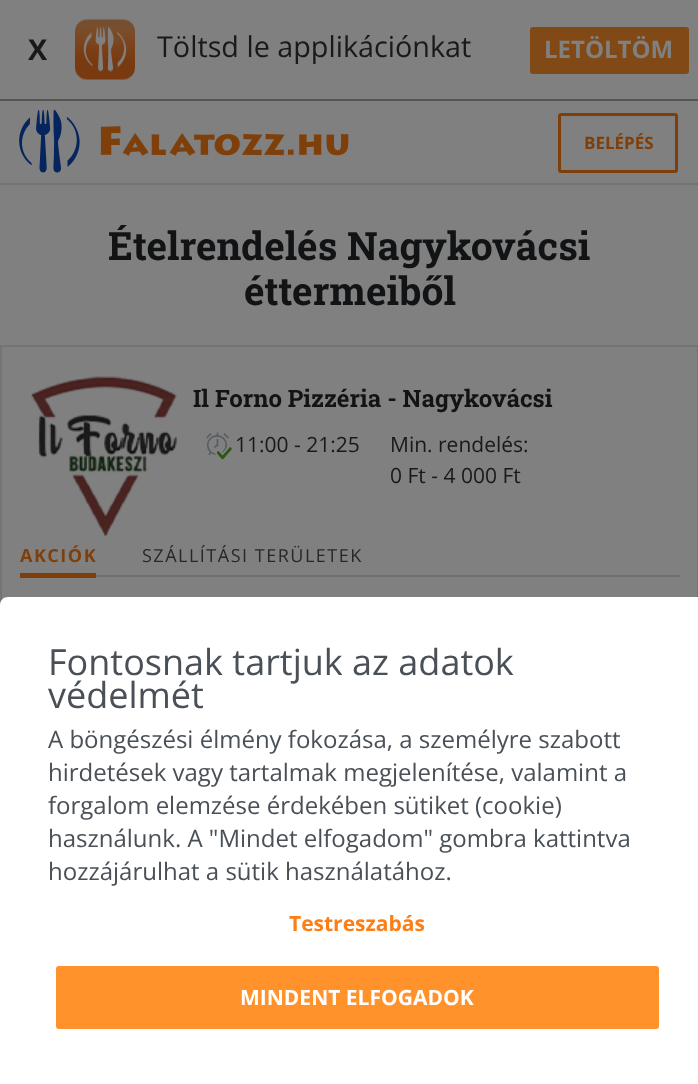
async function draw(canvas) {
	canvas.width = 698;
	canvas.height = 1084;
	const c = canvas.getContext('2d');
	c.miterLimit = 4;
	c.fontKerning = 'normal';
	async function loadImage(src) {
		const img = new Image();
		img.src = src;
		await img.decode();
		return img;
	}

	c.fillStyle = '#808080';
	c.fillRect(0, 0, 698, 1084);
	c.fillStyle = '#555';
	c.fillRect(0, 99, 698, 2);
	c.font = 'bold 28.75px Open Sans';
	c.fillStyle = '#17191a';
	c.fillText('X', 28, 60);
	c.drawImage(await loadImage('img1.png'), 75, 19, 60, 61);
	c.font = '28.75px Open Sans';
	c.fillText('Töltsd le applikációnkat', 157, 57);
	c.fillStyle = '#804916';
	c.beginPath();
	c.roundRect(531.5, 28.5, 156, 44, 1.5);
	c.fill();
	c.strokeStyle = '#804916';
	c.lineWidth = 3;
	c.stroke();
	c.font = 'bold 24px Open Sans';
	c.fillStyle = '#808080';
	c.fillText('LETÖLTÖM', 544, 58);
	c.drawImage(await loadImage('img2.png'), 19, 110, 330, 63);
	c.beginPath();
	c.roundRect(559.5, 114.5, 117, 57, 1.5);
	c.strokeStyle = '#7f3f0a';
	c.stroke();
	c.font = 'bold 17px Open Sans';
	c.fillStyle = '#7f3f0a';
	c.fillText('BELÉPÉS', 584, 149);
	c.fillStyle = '#747474';
	c.fillRect(0, 183, 698, 2);
	c.font = 'bold 39px Roboto Slab';
	c.fillStyle = '#111315';
	c.fillText('Ételrendelés Nagykovácsi', 108, 260);
	c.fillText('éttermeiből', 244, 305);
	c.strokeStyle = '#747474';
	c.lineWidth = 2;
	c.strokeRect(1, 346, 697, 379);
	c.drawImage(await loadImage('img3.png'), 31, 376, 146, 161);
	c.font = 'bold 24px Roboto Slab';
	c.fillText('Il Forno Pizzéria - Nagykovácsi', 193, 407);
	c.drawImage(await loadImage('img4.png'), 206, 432, 23, 24);
	c.font = '21px Open Sans';
	c.fillStyle = '#17191a';
	c.fillText('11:00 - 21:25', 235, 452);
	c.drawImage(await loadImage('img5.png'), 215, 447, 17, 13);
	c.fillText('Min. rendelés:', 390, 452);
	c.fillText('0 Ft - 4 000 Ft', 390, 483);
	c.fillStyle = '#6e6e6e';
	c.fillRect(96, 575, 584, 2);
	c.fillStyle = '#7f3f0a';
	c.fillRect(20, 573, 76, 5);
	c.letterSpacing = '1.5px';
	c.font = 'bold 18px Open Sans';
	c.fillText('AKCIÓK', 20, 562);
	c.font = '18px Open Sans';
	c.fillStyle = '#252728';
	c.fillText('SZÁLLÍTÁSI TERÜLETEK', 142, 562);
	c.fillStyle = '#fff';
	c.beginPath();
	c.moveTo(8, 597);
	c.lineTo(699, 597);
	c.lineTo(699, 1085);
	c.lineTo(0, 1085);
	c.lineTo(0, 605);
	c.bezierCurveTo(0, 600.5, 3.5, 597, 8, 597);
	c.closePath();
	c.fill();
	c.letterSpacing = '0px';
	c.font = '36px Open Sans';
	c.fillStyle = '#495057';
	c.fillText('Fontosnak tartjuk az adatok', 48, 675);
	c.fillText('védelmét', 48, 708);
	c.font = '24px Open Sans';
	for (const [text, x, y] of [
		['A böngészési élmény fokozása, a személyre szabott', 48, 748],
		['hirdetések vagy tartalmak megjelenítése, valamint a', 48, 781],
		['forgalom elemzése érdekében sütiket (cookie)', 48, 814],
		['használunk. A "Mindet elfogadom" gombra kattintva', 48, 847],
		['hozzájárulhat a sütik használatához.', 48, 880],
	]) {
		c.fillText(text, x, y);
	}
	c.font = 'bold 21px Open Sans';
	c.fillStyle = '#fd7e14';
	c.fillText('Testreszabás', 289, 931);
	c.fillStyle = '#ff922b';
	c.beginPath();
	c.roundRect(57.5, 967.5, 600, 60, 1.5);
	c.fill();
	c.strokeStyle = '#ff922b';
	c.lineWidth = 3;
	c.stroke();
	c.fillStyle = '#fff';
	c.fillText('MINDENT ELFOGADOK', 240, 1005);
}

draw(document.querySelector('canvas'));
